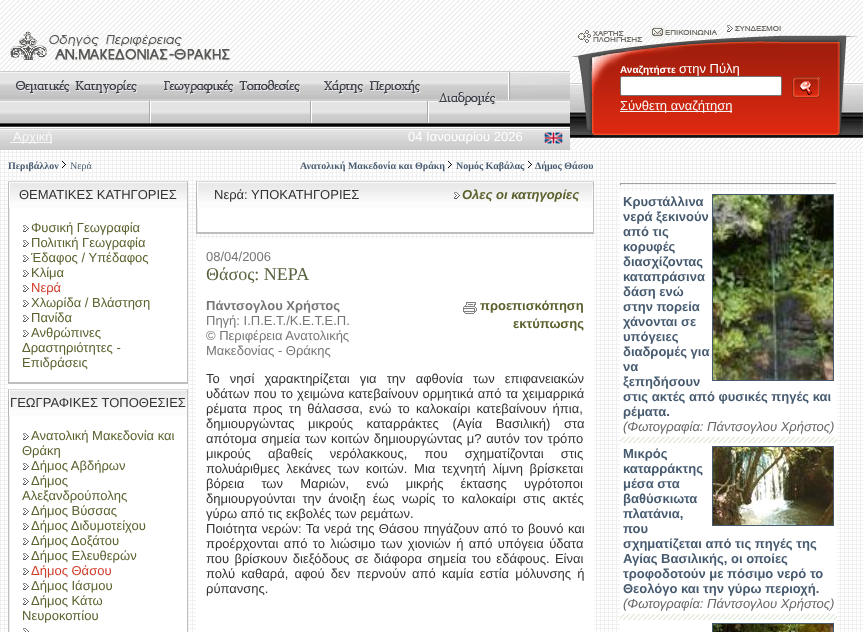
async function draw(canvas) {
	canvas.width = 863;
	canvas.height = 632;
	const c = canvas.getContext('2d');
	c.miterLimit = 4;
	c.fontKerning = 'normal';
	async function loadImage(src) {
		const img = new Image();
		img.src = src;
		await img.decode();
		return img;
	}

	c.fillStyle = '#fff';
	c.fillRect(0, 0, 863, 632);
	c.drawImage(await loadImage('img1.png'), 0, 150, 863, 482);
	c.drawImage(await loadImage('img2.png'), 0, 0, 863, 150);
	c.drawImage(await loadImage('img3.png'), 10, 31, 221, 30);
	c.drawImage(await loadImage('img4.png'), 570, 25, 212, 36);
	c.drawImage(await loadImage('img5.png'), 782, 35, 54, 26);
	c.drawImage(await loadImage('img6.png'), 836, 35, 27, 26);
	c.drawImage(await loadImage('img7.png'), 570, 61, 50, 77);
	c.drawImage(await loadImage('img8.png'), 620, 61, 216, 77);
	c.font = 'bold 10px Liberation Sans';
	c.fillText('Αναζητήστε', 620, 73);
	c.font = '13px Liberation Sans';
	c.fillText('στην Πύλη', 679, 73);
	c.beginPath();
	c.roundRect(620.5, 76.5, 161, 19, 1.5);
	c.fill();
	c.strokeStyle = '#767676';
	c.stroke();
	c.drawImage(await loadImage('img9.png'), 792, 76, 29, 22);
	c.fillStyle = '#f8f8f8';
	c.fillRect(620, 111, 112, 1);
	c.fillText('Σύνθετη αναζήτηση', 620, 110);
	c.drawImage(await loadImage('img10.png'), 836, 61, 27, 77);
	c.drawImage(await loadImage('img11.png'), 0, 123, 570, 27);
	c.drawImage(await loadImage('img12.png'), 0, 71, 570, 52);
	c.drawImage(await loadImage('img13.png'), 16, 80, 122, 15);
	c.drawImage(await loadImage('img14.png'), 149, 101, 2, 22);
	c.drawImage(await loadImage('img15.png'), 164, 80, 137, 15);
	c.drawImage(await loadImage('img14.png'), 310, 101, 2, 22);
	c.drawImage(await loadImage('img16.png'), 324, 80, 97, 15);
	c.drawImage(await loadImage('img14.png'), 427, 101, 2, 22);
	c.drawImage(await loadImage('img17.png'), 438, 92, 59, 15);
	c.drawImage(await loadImage('img18.png'), 508, 72, 62, 28);
	c.fillRect(10, 142, 42, 1);
	c.fillText('Αρχική', 13, 141);
	c.fillStyle = '#fff';
	c.fillText('04 Ιανουαρίου 2026', 408, 141);
	c.drawImage(await loadImage('img19.png'), 544, 132, 19, 12);
	c.font = 'bold 10px Liberation Serif';
	c.fillStyle = '#475b70';
	c.fillText('Περιβάλλον', 8, 169);
	c.drawImage(await loadImage('img20.png'), 62, 161, 4, 7);
	c.font = '10px Liberation Serif';
	c.fillText('Νερά', 70, 169);
	c.font = 'bold 10px Liberation Serif';
	c.fillText('Ανατολική Μακεδονία και Θράκη', 300, 169);
	c.drawImage(await loadImage('img21.png'), 448, 161, 4, 7);
	c.fillText('Νομός Καβάλας', 456, 169);
	c.drawImage(await loadImage('img21.png'), 528, 161, 4, 7);
	c.fillText('Δήμος Θάσου', 535, 169);
	for (const [x, y, w, h, color] of [
		[620, 183, 217, 1, '#9f9f9f'],
		[836, 183, 1, 2, '#eee'],
		[620, 183, 1, 2, '#9f9f9f'],
		[620, 191, 217, 441, '#fff'],
	]) {
		c.fillStyle = color;
		c.fillRect(x, y, w, h);
	}
	c.font = 'bold 13px Liberation Sans';
	c.fillStyle = '#475b70';
	c.fillText('Κρυστάλλινα', 623, 206);
	c.strokeStyle = '#475b70';
	c.strokeRect(712.5, 194.5, 121, 186);
	c.drawImage(await loadImage('img22.png'), 713, 195, 120, 185);
	for (const [text, x, y] of [
		['νερά ξεκινούν', 623, 221],
		['από τις', 623, 236],
		['κορυφές', 623, 251],
		['διασχίζοντας', 623, 266],
		['καταπράσινα', 623, 281],
		['δάση ενώ', 623, 296],
		['στην πορεία', 623, 311],
		['χάνονται σε', 623, 326],
		['υπόγειες', 623, 341],
		['διαδρομές για', 623, 356],
		['να', 623, 371],
		['ξεπηδήσουν', 623, 386],
		['στις ακτές από φυσικές πηγές και', 623, 401],
		['ρέματα.', 623, 416],
	]) {
		c.fillText(text, x, y);
	}
	c.font = 'italic 13px Liberation Sans';
	c.fillStyle = '#666';
	c.fillText('(Φωτογραφία: Πάντσογλου Χρήστος)', 623, 431);
	c.drawImage(await loadImage('img23.png'), 620, 437, 217, 6);
	c.font = 'bold 13px Liberation Sans';
	c.fillStyle = '#475b70';
	c.fillText('Μικρός', 623, 458);
	c.strokeRect(712.5, 446.5, 121, 79);
	c.drawImage(await loadImage('img24.png'), 713, 447, 120, 78);
	for (const [text, x, y] of [
		['καταρράκτης', 623, 473],
		['μέσα στα', 623, 488],
		['βαθύσκιωτα', 623, 503],
		['πλατάνια,', 623, 518],
		['που', 623, 533],
		['σχηματίζεται από τις πηγές της', 623, 548],
		['Αγίας Βασιλικής, οι οποίες', 623, 563],
		['τροφοδοτούν με πόσιμο νερό το', 623, 578],
		['Θεολόγο και την γύρω περιοχή.', 623, 593],
	]) {
		c.fillText(text, x, y);
	}
	c.font = 'italic 13px Liberation Sans';
	c.fillStyle = '#666';
	c.fillText('(Φωτογραφία: Πάντσογλου Χρήστος)', 623, 608);
	c.drawImage(await loadImage('img23.png'), 620, 614, 217, 6);
	c.strokeRect(712.5, 623.5, 121, 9);
	c.drawImage(await loadImage('img25.png'), 713, 624, 120, 8);
	c.drawImage(await loadImage('img26.png'), 8, 181, 2, 27);
	c.drawImage(await loadImage('img27.png'), 10, 181, 176, 27);
	c.font = '13px Liberation Sans';
	c.fillStyle = '#333';
	c.fillText('ΘΕΜΑΤΙΚΕΣ ΚΑΤΗΓΟΡΙΕΣ', 19, 199);
	c.drawImage(await loadImage('img28.png'), 186, 181, 2, 27);
	c.fillStyle = '#fff';
	c.fillRect(10, 208, 177, 174);
	c.drawImage(await loadImage('img29.png'), 8, 208, 2, 174);
	c.drawImage(await loadImage('img30.png'), 23, 225, 6, 7);
	c.fillStyle = '#5b602d';
	c.fillText('Φυσική Γεωγραφία', 31, 232);
	c.drawImage(await loadImage('img30.png'), 23, 240, 6, 7);
	c.fillText('Πολιτική Γεωγραφία', 31, 247);
	c.drawImage(await loadImage('img30.png'), 23, 255, 6, 7);
	c.fillText('Έδαφος / Υπέδαφος', 31, 262);
	c.drawImage(await loadImage('img30.png'), 23, 270, 6, 7);
	c.fillText('Κλίμα', 31, 277);
	c.drawImage(await loadImage('img30.png'), 23, 285, 6, 7);
	c.fillStyle = '#d23c2b';
	c.fillText('Νερά', 31, 292);
	c.drawImage(await loadImage('img30.png'), 23, 300, 6, 7);
	c.fillStyle = '#5b602d';
	c.fillText('Χλωρίδα / Βλάστηση', 31, 307);
	c.drawImage(await loadImage('img30.png'), 23, 315, 6, 7);
	c.fillText('Πανίδα', 31, 322);
	c.drawImage(await loadImage('img30.png'), 23, 330, 6, 7);
	for (const [text, x, y] of [
		['Ανθρώπινες', 31, 337],
		['Δραστηριότητες -', 22, 352],
		['Επιδράσεις', 22, 367],
	]) {
		c.fillText(text, x, y);
	}
	for (const [x, y, w, h, color] of [
		[187, 208, 1, 174, '#bebebe'],
		[8, 382, 180, 2, '#bebebe'],
		[8, 384, 180, 5, '#fff'],
	]) {
		c.fillStyle = color;
		c.fillRect(x, y, w, h);
	}
	c.drawImage(await loadImage('img27.png'), 10, 389, 176, 27);
	c.drawImage(await loadImage('img31.png'), 8, 389, 2, 27);
	c.fillStyle = '#333';
	c.fillText('ΓΕΩΓΡΑΦΙΚΕΣ ΤΟΠΟΘΕΣΙΕΣ', 10, 407);
	c.drawImage(await loadImage('img32.png'), 186, 389, 2, 27);
	c.fillStyle = '#fff';
	c.fillRect(10, 416, 177, 216);
	c.drawImage(await loadImage('img33.png'), 8, 416, 2, 216);
	c.drawImage(await loadImage('img30.png'), 23, 433, 6, 7);
	c.fillStyle = '#5b602d';
	c.fillText('Ανατολική Μακεδονία και', 31, 440);
	c.fillText('Θράκη', 22, 455);
	c.drawImage(await loadImage('img30.png'), 23, 463, 6, 7);
	c.fillText('Δήμος Αβδήρων', 31, 470);
	c.drawImage(await loadImage('img30.png'), 23, 478, 6, 7);
	c.fillText('Δήμος', 31, 485);
	c.fillText('Αλεξανδρούπολης', 22, 500);
	c.drawImage(await loadImage('img30.png'), 23, 508, 6, 7);
	c.fillText('Δήμος Βύσσας', 31, 515);
	c.drawImage(await loadImage('img30.png'), 23, 523, 6, 7);
	c.fillText('Δήμος Διδυμοτείχου', 31, 530);
	c.drawImage(await loadImage('img30.png'), 23, 538, 6, 7);
	c.fillText('Δήμος Δοξάτου', 31, 545);
	c.drawImage(await loadImage('img30.png'), 23, 553, 6, 7);
	c.fillText('Δήμος Ελευθερών', 31, 560);
	c.drawImage(await loadImage('img30.png'), 23, 568, 6, 7);
	c.fillStyle = '#d23c2b';
	c.fillText('Δήμος Θάσου', 31, 575);
	c.drawImage(await loadImage('img30.png'), 23, 583, 6, 7);
	c.fillStyle = '#5b602d';
	c.fillText('Δήμος Ιάσμου', 31, 590);
	c.drawImage(await loadImage('img30.png'), 23, 598, 6, 7);
	c.fillText('Δήμος Κάτω', 31, 605);
	c.fillText('Νευροκοπίου', 22, 620);
	c.drawImage(await loadImage('img34.png'), 23, 628, 6, 4);
	c.fillStyle = '#bebebe';
	c.fillRect(187, 416, 1, 216);
	c.drawImage(await loadImage('img35.png'), 198, 181, 394, 27);
	c.drawImage(await loadImage('img31.png'), 196, 181, 2, 27);
	c.fillStyle = '#333';
	c.fillText('Νερά: ΥΠΟΚΑΤΗΓΟΡΙΕΣ', 214, 199);
	c.drawImage(await loadImage('img36.png'), 454, 192, 6, 7);
	c.font = 'italic bold 13px Liberation Sans';
	c.fillStyle = '#5b602d';
	c.fillText('Ολες οι κατηγορίες', 462, 199);
	c.drawImage(await loadImage('img32.png'), 592, 181, 2, 27);
	c.fillStyle = '#fff';
	c.fillRect(198, 208, 395, 24);
	c.drawImage(await loadImage('img37.png'), 196, 208, 2, 24);
	for (const [x, y, w, h, color] of [
		[593, 208, 1, 24, '#bebebe'],
		[196, 232, 398, 2, '#bebebe'],
		[196, 239, 398, 393, '#fff'],
	]) {
		c.fillStyle = color;
		c.fillRect(x, y, w, h);
	}
	c.font = '13px Liberation Sans';
	c.fillStyle = '#767676';
	c.fillText('08/04/2006', 206, 261);
	c.font = '18px Liberation Serif';
	c.fillStyle = '#596440';
	c.fillText('Θάσος: ΝΕΡΑ', 206, 280);
	c.font = 'bold 13px Liberation Sans';
	c.fillStyle = '#767676';
	c.fillText('Πάντσογλου Χρήστος', 206, 310);
	c.font = '13px Liberation Sans';
	for (const [text, x, y] of [
		['Πηγή: Ι.Π.Ε.Τ./Κ.Ε.Τ.Ε.Π.', 206, 325],
		['© Περιφέρεια Ανατολικής', 206, 340],
		['Μακεδονίας - Θράκης', 206, 355],
	]) {
		c.fillText(text, x, y);
	}
	c.drawImage(await loadImage('img38.png'), 463, 302, 14, 12);
	c.font = 'bold 13px Liberation Sans';
	c.fillStyle = '#5b602d';
	c.fillText('προεπισκόπηση', 480, 310);
	c.fillText('εκτύπωσης', 513, 328);
	c.wordSpacing = '6.5px';
	c.font = '13px Liberation Sans';
	c.fillStyle = '#333';
	c.fillText('Το νησί χαρακτηρίζεται για την αφθονία των επιφανειακών', 206, 383);
	c.wordSpacing = '0.5px';
	c.fillText('υδάτων που το χειμώνα κατεβαίνουν ορμητικά από τα χειμαρρικά', 206, 398);
	c.wordSpacing = '2.5px';
	c.fillText('ρέματα προς τη θάλασσα, ενώ το καλοκαίρι κατεβαίνουν ήπια,', 206, 413);
	c.wordSpacing = '10px';
	c.fillText('δημιουργώντας μικρούς καταρράκτες (Αγία Βασιλική) στα', 206, 428);
	c.wordSpacing = '1px';
	c.fillText('απότομα σημεία των κοιτών δημιουργώντας μ? αυτόν τον τρόπο', 206, 443);
	c.wordSpacing = '13.5px';
	c.fillText('μικρούς αβαθείς νερόλακκους, που σχηματίζονται στις', 206, 458);
	c.wordSpacing = '3px';
	c.fillText('πολυάριθμες λεκάνες των κοιτών. Μια τεχνητή λίμνη βρίσκεται', 206, 473);
	c.wordSpacing = '13.5px';
	c.fillText('βόρεια των Μαριών, ενώ μικρής έκτασης υγρότοποι', 206, 488);
	c.wordSpacing = '3.5px';
	c.fillText('δημιουργούνται την άνοιξη έως νωρίς το καλοκαίρι στις ακτές', 206, 503);
	c.wordSpacing = '0px';
	c.fillText('γύρω από τις εκβολές των ρεμάτων.', 206, 518);
	c.wordSpacing = '0.75px';
	c.fillText('Ποιότητα νερών: Τα νερά της Θάσου πηγάζουν από το βουνό και', 206, 533);
	c.wordSpacing = '1.75px';
	c.fillText('προέρχονται από το λιώσιμο των χιονιών ή από υπόγεια ύδατα', 206, 548);
	c.fillText('που βρίσκουν διεξόδους σε διάφορα σημεία του εδάφους. Είναι', 206, 563);
	c.wordSpacing = '2.5px';
	c.fillText('πολύ καθαρά, αφού δεν περνούν από καμία εστία μόλυνσης ή', 206, 578);
	c.wordSpacing = '0px';
	c.fillText('ρύπανσης.', 206, 593);
}

draw(document.querySelector('canvas'));
